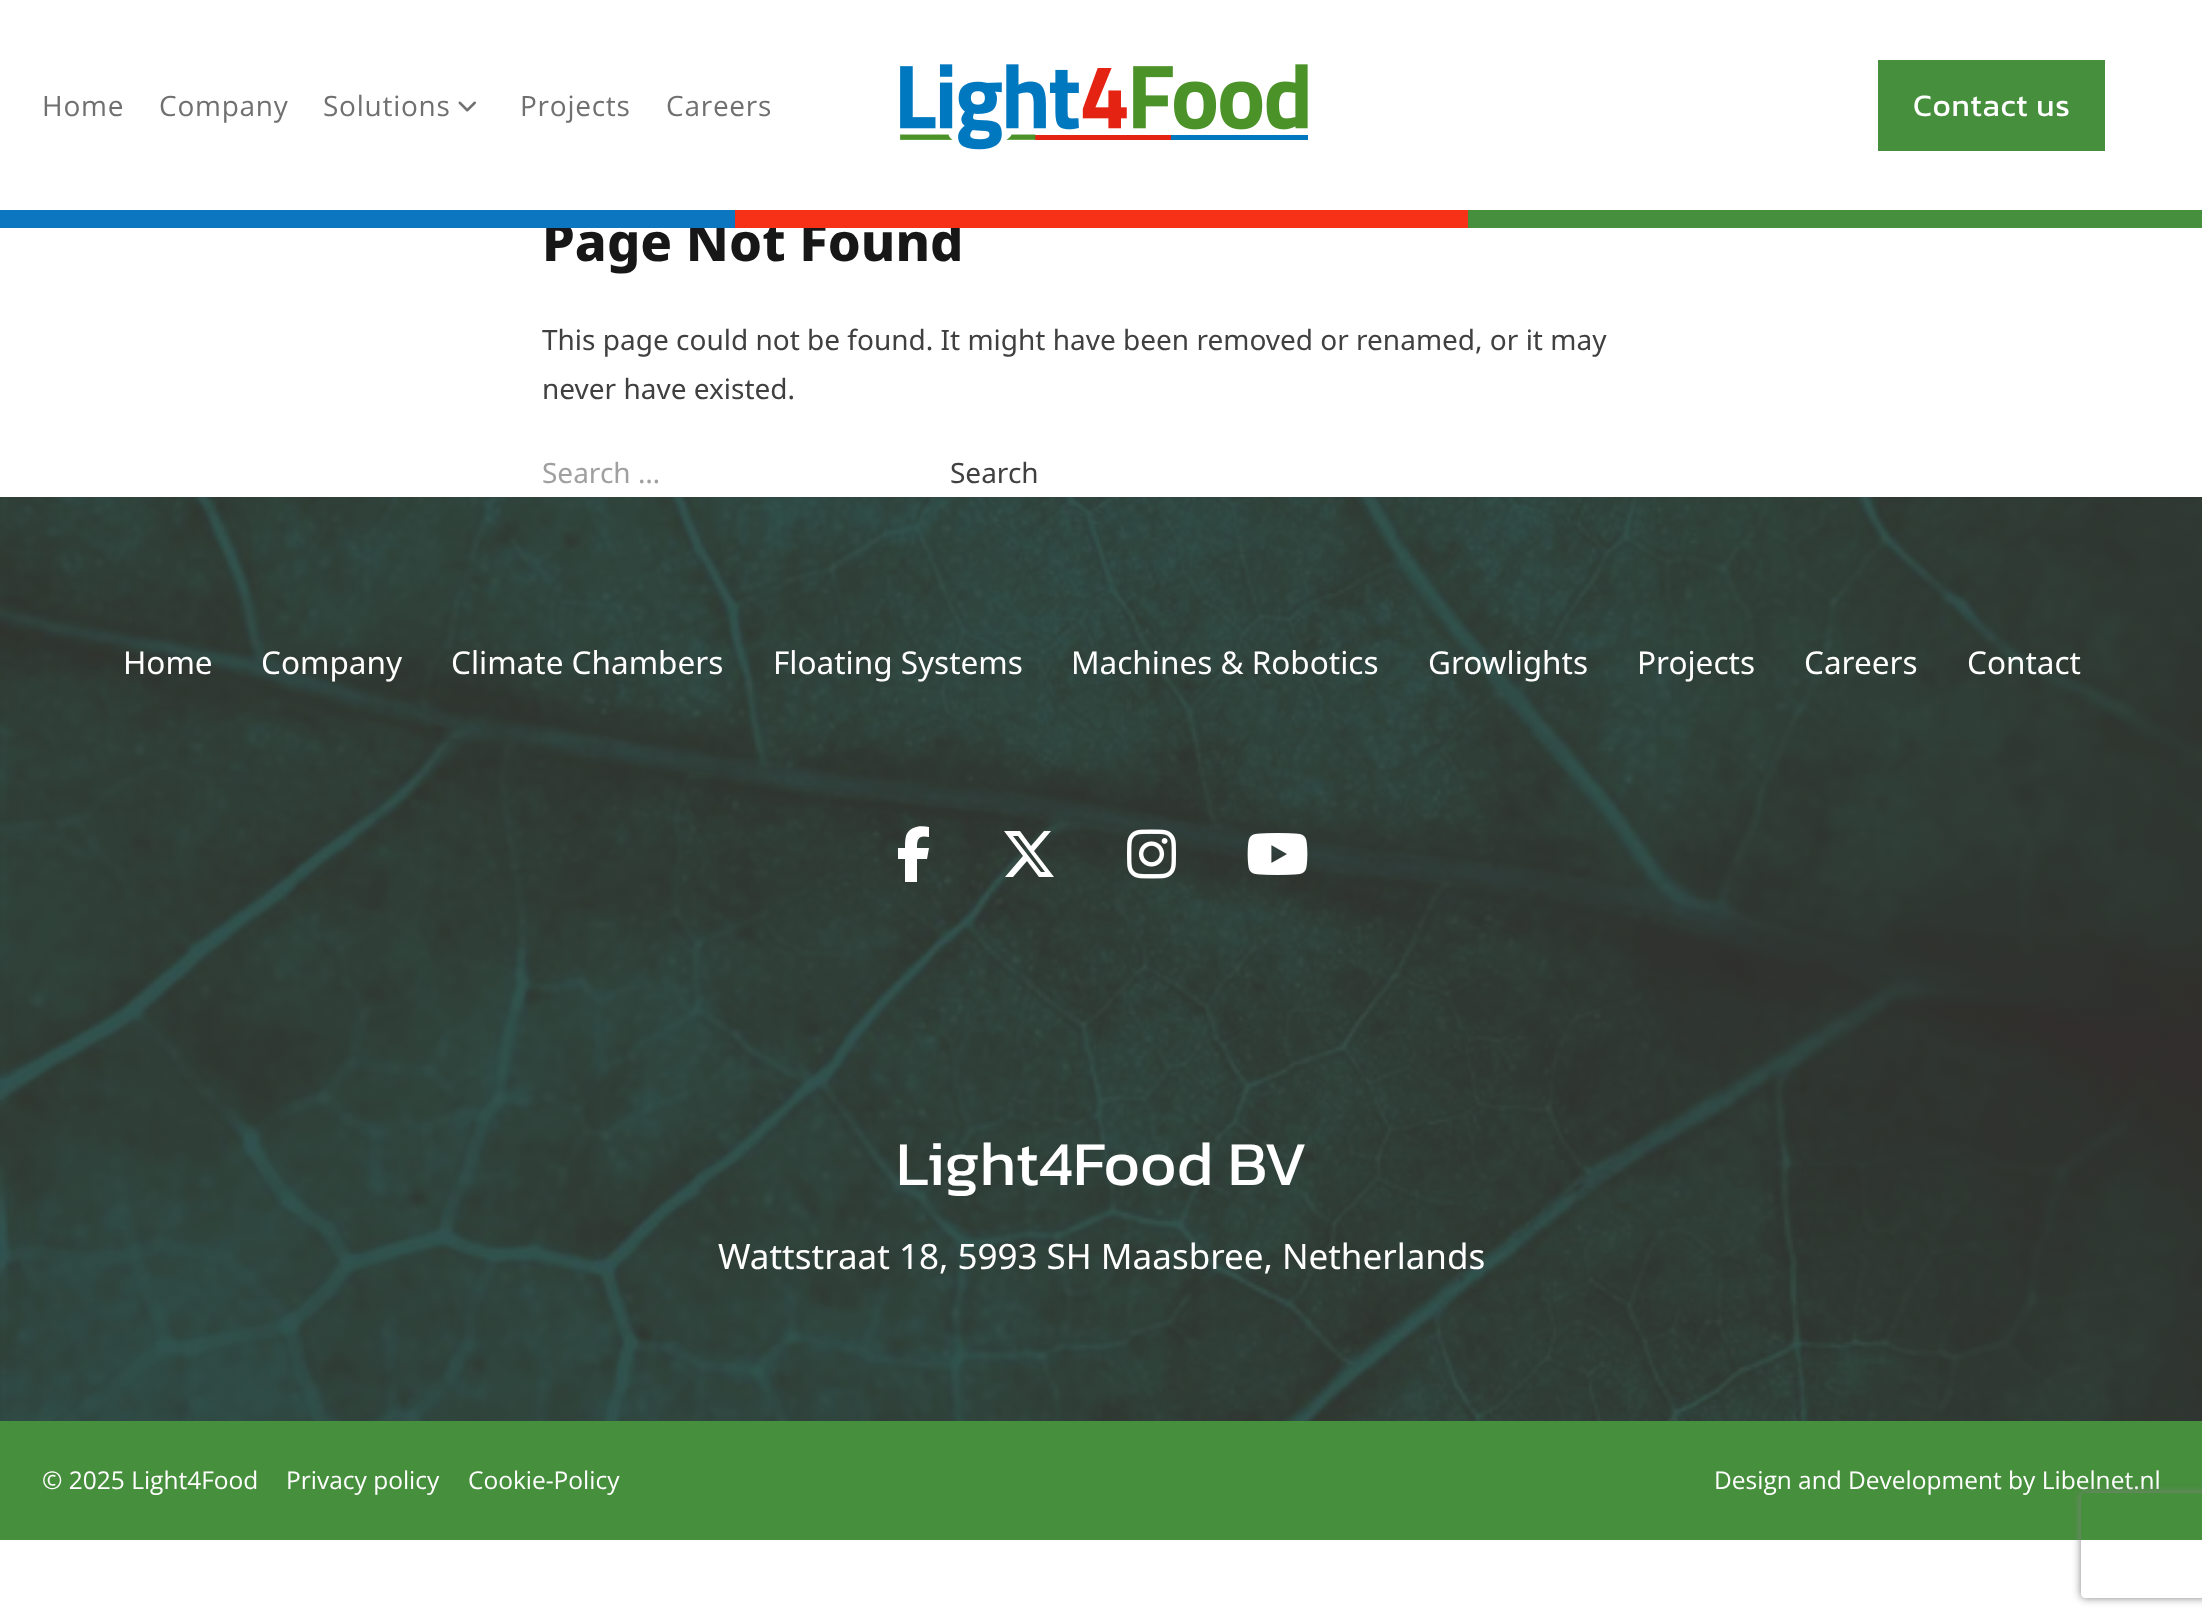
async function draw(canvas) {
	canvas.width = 2202;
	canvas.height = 1622;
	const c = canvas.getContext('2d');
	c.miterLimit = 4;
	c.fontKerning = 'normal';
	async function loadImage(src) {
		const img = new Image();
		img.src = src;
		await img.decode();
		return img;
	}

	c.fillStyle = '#fff';
	c.fillRect(0, 0, 2202, 1622);
	c.letterSpacing = '0.75px';
	c.font = '28px Open Sans';
	c.fillStyle = '#707070';
	for (const [text, x, y] of [
		['Home', 42, 116],
		['Company', 159, 116],
		['Solutions', 323, 116],
	]) {
		c.fillText(text, x, y);
	}
	c.drawImage(await loadImage('img1.png'), 458, 101, 18, 11);
	c.fillText('Projects', 520, 116);
	c.fillText('Careers', 666, 116);
	c.drawImage(await loadImage('img2.png'), 900, 64, 408, 86);
	c.fillStyle = '#468f3c';
	c.fillRect(1878, 60, 227, 91);
	c.font = '31.5px Kanit';
	c.fillStyle = '#fff';
	c.fillText('Contact us', 1913, 116);
	c.letterSpacing = '0px';
	c.font = '800 52.5px Noto Sans';
	c.fillStyle = '#171717';
	c.fillText('Page Not Found', 542, 261);
	for (const [x, y, w, h, color] of [
		[0, 210, 735, 18, '#0d76c1'],
		[735, 210, 733, 18, '#f73118'],
		[1468, 210, 734, 18, '#468f3c'],
	]) {
		c.fillStyle = color;
		c.fillRect(x, y, w, h);
	}
	c.font = '28px Noto Sans';
	c.fillStyle = '#404040';
	c.fillText('This page could not be found. It might have been removed or renamed, or it may', 542, 350);
	c.fillText('never have existed.', 542, 399);
	c.fillStyle = '#a0a0a0';
	c.fillText('Search …', 542, 483);
	c.fillStyle = '#404040';
	c.fillText('Search', 950, 483);
	c.drawImage(await loadImage('img3.png'), 0, 497, 2202, 924);
	c.font = '31.5px Noto Sans';
	c.fillStyle = '#fff';
	for (const [text, x, y] of [
		['Home', 123, 674],
		['Company', 261, 674],
		['Climate Chambers', 451, 674],
		['Floating Systems', 773, 674],
		['Machines & Robotics', 1071, 674],
		['Growlights', 1428, 674],
		['Projects', 1637, 674],
		['Careers', 1804, 674],
		['Contact', 1967, 674],
	]) {
		c.fillText(text, x, y);
	}
	c.beginPath();
	c.moveTo(905, 859);
	c.lineTo(905, 882);
	c.lineTo(917, 882);
	c.lineTo(917, 859);
	c.lineTo(927, 859);
	c.lineTo(929, 848);
	c.lineTo(917, 848);
	c.bezierCurveTo(917, 838, 919, 835, 929, 837);
	c.lineTo(929, 827);
	c.bezierCurveTo(921, 825, 909, 826, 906, 836);
	c.bezierCurveTo(905, 840, 905, 844, 905, 848);
	c.lineTo(898, 848);
	c.lineTo(898, 859);
	c.closePath();
	c.fill();
	c.beginPath();
	c.moveTo(1044, 831);
	c.lineTo(1051, 831);
	c.lineTo(1034, 851);
	c.lineTo(1054, 877);
	c.lineTo(1039, 877);
	c.lineTo(1027, 861);
	c.lineTo(1013, 877);
	c.lineTo(1005, 877);
	c.lineTo(1023, 856);
	c.lineTo(1004, 831);
	c.lineTo(1020, 831);
	c.lineTo(1031, 846);
	c.closePath();
	c.moveTo(1041, 872);
	c.lineTo(1045, 872);
	c.lineTo(1018, 836);
	c.lineTo(1013, 836);
	c.closePath();
	c.fill();
	c.drawImage(await loadImage('img4.png'), 1127, 829, 49, 50);
	c.drawImage(await loadImage('img5.png'), 1247, 833, 61, 42);
	c.font = '63px Kanit';
	c.fillText('Light4Food BV', 896, 1185);
	c.font = '35px Noto Sans';
	c.fillText('Wattstraat 18, 5993 SH Maasbree, Netherlands', 718, 1269);
	c.fillStyle = '#468f3c';
	c.fillRect(0, 1421, 2202, 119);
	c.font = '24.5px Open Sans';
	c.fillStyle = '#fff';
	for (const [text, x, y] of [
		['© 2025 Light4Food', 42, 1489],
		['Privacy policy', 286, 1489],
		['Cookie-Policy', 468, 1489],
		['Design and Development by Libelnet.nl', 1714, 1489],
	]) {
		c.fillText(text, x, y);
	}
	c.save();
	c.beginPath();
	c.moveTo(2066, 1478);
	c.lineTo(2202, 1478);
	c.lineTo(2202, 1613);
	c.lineTo(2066, 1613);
	c.closePath();
	c.moveTo(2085, 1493);
	c.lineTo(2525, 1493);
	c.bezierCurveTo(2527, 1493, 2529, 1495, 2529, 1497);
	c.lineTo(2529, 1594);
	c.bezierCurveTo(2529, 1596, 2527, 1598, 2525, 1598);
	c.lineTo(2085, 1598);
	c.bezierCurveTo(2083, 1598, 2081, 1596, 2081, 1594);
	c.lineTo(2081, 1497);
	c.bezierCurveTo(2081, 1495, 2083, 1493, 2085, 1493);
	c.closePath();
	c.clip('evenodd');
	c.fillStyle = '#808080';
	c.filter = 'blur(4.5px)';
	c.beginPath();
	c.roundRect(2081, 1493, 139, 105, 4);
	c.fill();
	c.filter = 'none';
	c.restore();
}

draw(document.querySelector('canvas'));
